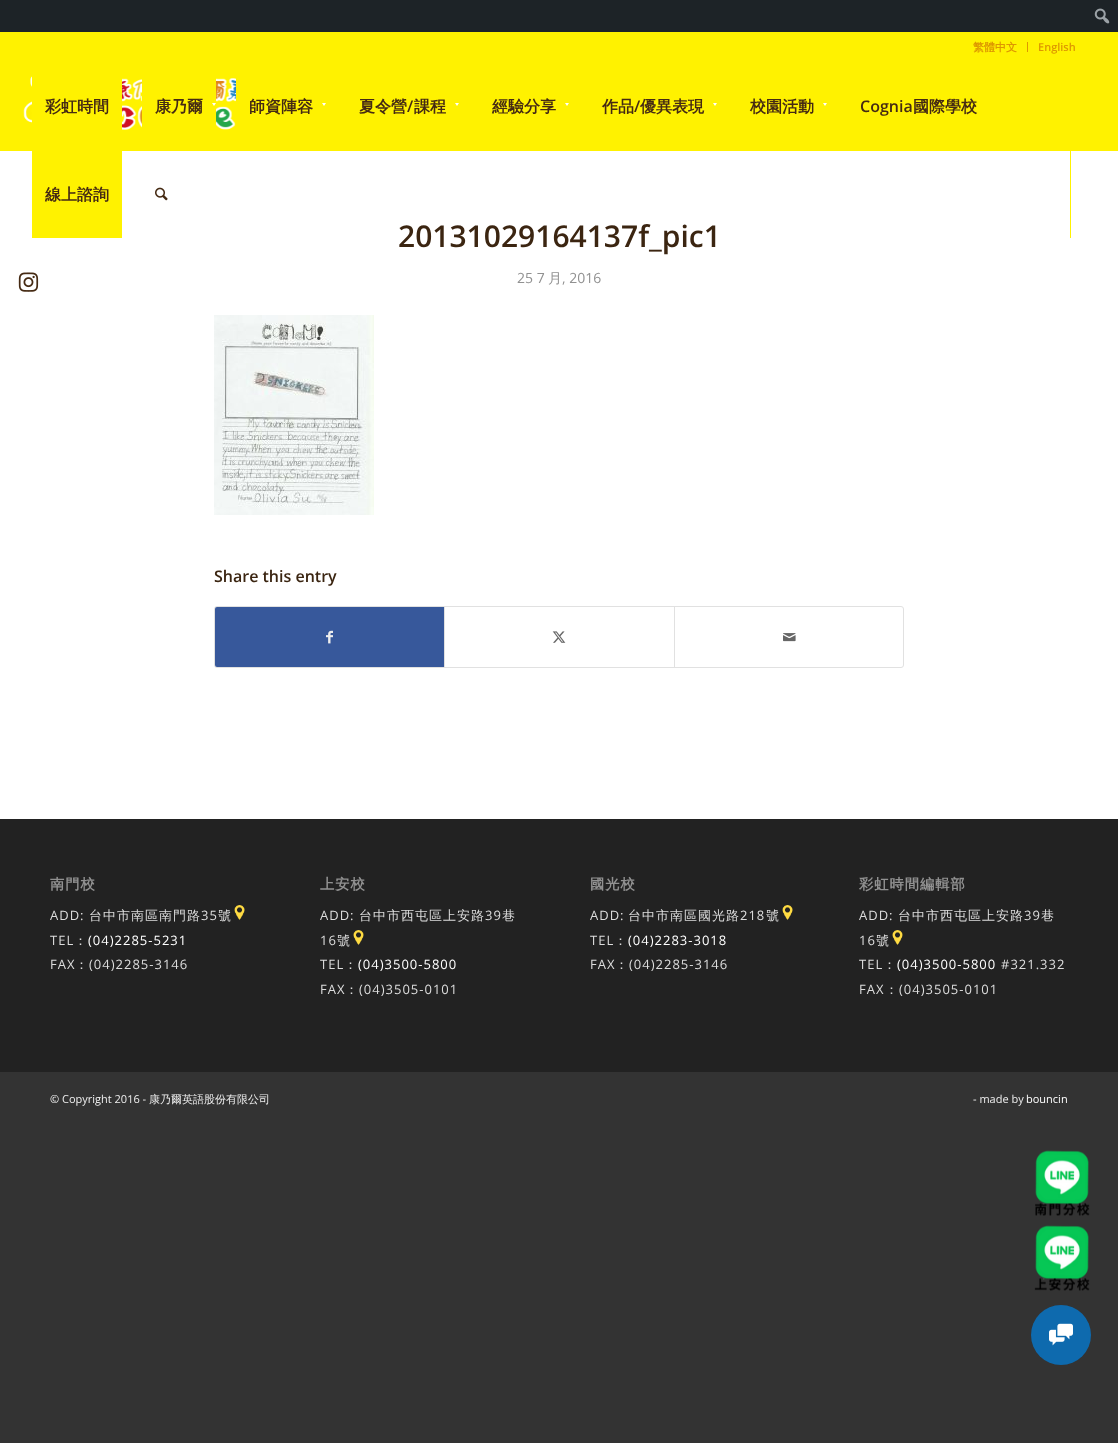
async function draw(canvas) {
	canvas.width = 1118;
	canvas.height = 1443;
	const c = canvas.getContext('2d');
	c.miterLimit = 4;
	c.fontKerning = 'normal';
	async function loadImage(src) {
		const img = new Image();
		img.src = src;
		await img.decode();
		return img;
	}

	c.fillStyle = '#333';
	c.fillRect(0, 0, 1118, 1443);
	c.fillStyle = '#1d2327';
	c.fillRect(0, 0, 1118, 32);
	c.drawImage(await loadImage('img1.png'), 1094, 8, 16, 16);
	c.fillStyle = '#fff200';
	c.fillRect(0, 32, 1118, 119);
	c.fillStyle = '#de9800';
	c.fillRect(1027, 42, 1, 10);
	c.font = 'bold 11px WenQuanYi Zen Hei';
	c.fillText('繁體中文', 973, 51);
	c.font = '600 11px Open Sans';
	c.fillText('English', 1038, 51);
	c.drawImage(await loadImage('img2.png'), 23, 76, 213, 54);
	for (const [x, y, w, h, color] of [
		[0, 151, 1118, 668, '#fff'],
		[1070, 151, 1, 87, '#fff200'],
		[32, 76, 90, 54, '#fff200'],
	]) {
		c.fillStyle = color;
		c.fillRect(x, y, w, h);
	}
	c.font = 'bold 16px WenQuanYi Zen Hei';
	c.fillStyle = '#452a13';
	c.fillText('彩虹時間', 45, 112);
	c.fillStyle = '#fff200';
	c.fillRect(142, 76, 74, 54);
	c.fillStyle = '#452a13';
	c.fillText('康乃爾', 155, 112);
	c.fillStyle = '#fff';
	c.beginPath();
	c.moveTo(212, 103);
	c.lineTo(216, 103);
	c.lineTo(214, 106);
	c.closePath();
	c.fill();
	c.fillStyle = '#452a13';
	c.fillText('師資陣容', 249, 112);
	c.fillStyle = '#fff';
	c.beginPath();
	c.moveTo(322, 103);
	c.lineTo(326, 103);
	c.lineTo(324, 106);
	c.closePath();
	c.fill();
	c.fillStyle = '#452a13';
	c.fillText('夏令營', 359, 112);
	c.font = '600 16px Open Sans';
	c.fillText('/', 407, 112);
	c.font = 'bold 16px WenQuanYi Zen Hei';
	c.fillText('課程', 414, 112);
	c.fillStyle = '#fff';
	c.beginPath();
	c.moveTo(455, 103);
	c.lineTo(459, 103);
	c.lineTo(457, 106);
	c.closePath();
	c.fill();
	c.fillStyle = '#452a13';
	c.fillText('經驗分享', 492, 112);
	c.fillStyle = '#fff';
	c.beginPath();
	c.moveTo(565, 103);
	c.lineTo(569, 103);
	c.lineTo(567, 106);
	c.closePath();
	c.fill();
	c.fillStyle = '#452a13';
	c.fillText('作品', 602, 112);
	c.font = '600 16px Open Sans';
	c.fillText('/', 634, 112);
	c.font = 'bold 16px WenQuanYi Zen Hei';
	c.fillText('優異表現', 640, 112);
	c.fillStyle = '#fff';
	c.beginPath();
	c.moveTo(713, 103);
	c.lineTo(717, 103);
	c.lineTo(715, 106);
	c.closePath();
	c.fill();
	c.fillStyle = '#452a13';
	c.fillText('校園活動', 750, 112);
	c.fillStyle = '#fff';
	c.beginPath();
	c.moveTo(823, 103);
	c.lineTo(827, 103);
	c.lineTo(825, 106);
	c.closePath();
	c.fill();
	c.font = '600 16px Open Sans';
	c.fillStyle = '#452a13';
	c.fillText('Cognia', 860, 112);
	c.font = 'bold 16px WenQuanYi Zen Hei';
	c.fillText('國際學校', 913, 112);
	c.fillStyle = '#fff200';
	c.fillRect(32, 151, 90, 87);
	c.fillStyle = '#452a13';
	c.fillText('線上諮詢', 45, 200);
	c.drawImage(await loadImage('img3.png'), 155, 187, 13, 14);
	c.drawImage(await loadImage('img4.png'), 18, 272, 21, 20);
	c.font = '600 30px Open Sans';
	c.fillStyle = '#3b2511';
	c.fillText('20131029164137f_pic1', 398, 247);
	c.font = '14px Open Sans';
	c.fillStyle = '#919191';
	c.fillText('25 7', 517, 283);
	c.font = '500 14px WenQuanYi Zen Hei';
	c.fillText('月', 548, 283);
	c.font = '14px Open Sans';
	c.fillText(', 2016', 562, 283);
	c.drawImage(await loadImage('img5.png'), 214, 315, 160, 200);
	c.font = '600 16px Open Sans';
	c.fillStyle = '#3b2511';
	c.fillText('Share this entry', 214, 582);
	c.beginPath();
	c.roundRect(214.5, 606.5, 689, 61, 2.5);
	c.strokeStyle = '#e1e1e1';
	c.stroke();
	c.fillStyle = '#37589b';
	c.beginPath();
	c.roundRect(215, 607, 229, 60, [2, 0, 0, 2]);
	c.fill();
	c.drawImage(await loadImage('img6.png'), 326, 630, 7, 14);
	c.fillStyle = '#e1e1e1';
	c.fillRect(444, 607, 1, 60);
	c.drawImage(await loadImage('img7.png'), 552, 631, 14, 12);
	c.fillRect(674, 607, 1, 60);
	c.drawImage(await loadImage('img8.png'), 783, 633, 13, 9);
	c.fillStyle = '#222';
	c.fillRect(0, 819, 1118, 253);
	c.letterSpacing = '1px';
	c.font = 'bold 14.25px WenQuanYi Zen Hei';
	c.fillStyle = '#919191';
	c.fillText('南門校', 50, 889);
	c.font = '13px Open Sans';
	c.fillStyle = '#ddd';
	c.fillText('ADD:', 50, 920);
	c.font = '500 13px WenQuanYi Zen Hei';
	c.fillText('台中市南區南門路', 89, 920);
	c.font = '13px Open Sans';
	c.fillText('35', 201, 920);
	c.font = '500 13px WenQuanYi Zen Hei';
	c.fillText('號', 218, 920);
	c.drawImage(await loadImage('img9.png'), 234, 905, 11, 15);
	c.font = '13px Open Sans';
	c.fillText('TEL', 50, 945);
	c.font = '500 13px WenQuanYi Zen Hei';
	c.fillText('：', 74, 945);
	c.font = '13px Open Sans';
	c.fillStyle = '#fff';
	c.fillText('(04)2285-5231', 88, 945);
	c.fillStyle = '#ddd';
	c.fillText('FAX', 50, 969);
	c.font = '500 13px WenQuanYi Zen Hei';
	c.fillText('：', 75, 969);
	c.font = '13px Open Sans';
	c.fillText('(04)2285-3146', 89, 969);
	c.font = 'bold 14.25px WenQuanYi Zen Hei';
	c.fillStyle = '#919191';
	c.fillText('上安校', 320, 889);
	c.font = '13px Open Sans';
	c.fillStyle = '#ddd';
	c.fillText('ADD:', 320, 920);
	c.font = '500 13px WenQuanYi Zen Hei';
	c.fillText('台中市西屯區上安路', 359, 920);
	c.font = '13px Open Sans';
	c.fillText('39', 485, 920);
	c.font = '500 13px WenQuanYi Zen Hei';
	c.fillText('巷', 502, 920);
	c.font = '13px Open Sans';
	c.fillText('16', 320, 945);
	c.font = '500 13px WenQuanYi Zen Hei';
	c.fillText('號', 337, 945);
	c.drawImage(await loadImage('img10.png'), 353, 930, 11, 15);
	c.font = '13px Open Sans';
	c.fillText('TEL', 320, 969);
	c.font = '500 13px WenQuanYi Zen Hei';
	c.fillText('：', 344, 969);
	c.font = '13px Open Sans';
	c.fillStyle = '#fff';
	c.fillText('(04)3500-5800', 358, 969);
	c.fillStyle = '#ddd';
	c.fillText('FAX', 320, 994);
	c.font = '500 13px WenQuanYi Zen Hei';
	c.fillText('：', 345, 994);
	c.font = '13px Open Sans';
	c.fillText('(04)3505-0101', 359, 994);
	c.font = 'bold 14.25px WenQuanYi Zen Hei';
	c.fillStyle = '#919191';
	c.fillText('國光校', 590, 889);
	c.font = '13px Open Sans';
	c.fillStyle = '#ddd';
	c.fillText('ADD:', 590, 920);
	c.font = '500 13px WenQuanYi Zen Hei';
	c.fillText('台中市南區國光路', 628, 920);
	c.font = '13px Open Sans';
	c.fillText('218', 740, 920);
	c.font = '500 13px WenQuanYi Zen Hei';
	c.fillText('號', 766, 920);
	c.drawImage(await loadImage('img9.png'), 782, 905, 11, 15);
	c.font = '13px Open Sans';
	c.fillText('TEL', 590, 945);
	c.font = '500 13px WenQuanYi Zen Hei';
	c.fillText('：', 614, 945);
	c.font = '13px Open Sans';
	c.fillStyle = '#fff';
	c.fillText('(04)2283-3018', 628, 945);
	c.fillStyle = '#ddd';
	c.fillText('FAX', 590, 969);
	c.font = '500 13px WenQuanYi Zen Hei';
	c.fillText('：', 615, 969);
	c.font = '13px Open Sans';
	c.fillText('(04)2285-3146', 629, 969);
	c.font = 'bold 14.25px WenQuanYi Zen Hei';
	c.fillStyle = '#919191';
	c.fillText('彩虹時間編輯部', 859, 889);
	c.font = '13px Open Sans';
	c.fillStyle = '#ddd';
	c.fillText('ADD:', 859, 920);
	c.font = '500 13px WenQuanYi Zen Hei';
	c.fillText('台中市西屯區上安路', 898, 920);
	c.font = '13px Open Sans';
	c.fillText('39', 1024, 920);
	c.font = '500 13px WenQuanYi Zen Hei';
	c.fillText('巷', 1041, 920);
	c.font = '13px Open Sans';
	c.fillText('16', 859, 945);
	c.font = '500 13px WenQuanYi Zen Hei';
	c.fillText('號', 876, 945);
	c.drawImage(await loadImage('img10.png'), 892, 930, 11, 15);
	c.font = '13px Open Sans';
	c.fillText('TEL', 859, 969);
	c.font = '500 13px WenQuanYi Zen Hei';
	c.fillText('：', 883, 969);
	c.font = '13px Open Sans';
	c.fillStyle = '#fff';
	c.fillText('(04)3500-5800', 897, 969);
	c.fillStyle = '#ddd';
	c.fillText('#321.332', 1001, 969);
	c.fillText('FAX', 859, 994);
	c.font = '500 13px WenQuanYi Zen Hei';
	c.fillText('：', 885, 994);
	c.font = '13px Open Sans';
	c.fillText('(04)3505-0101', 899, 994);
	c.letterSpacing = '0px';
	c.font = '11px Open Sans';
	c.fillStyle = '#eee';
	c.fillText('© Copyright 2016 -', 50, 1103);
	c.font = '500 11px WenQuanYi Zen Hei';
	c.fillText('康乃爾英語股份有限公司', 149, 1103);
	c.font = '11px Open Sans';
	c.fillText('- made by', 973, 1103);
	c.fillStyle = '#fff';
	c.fillText('bouncin', 1026, 1103);
	c.drawImage(await loadImage('img11.png'), 1035, 1150, 55, 66);
	c.drawImage(await loadImage('img12.png'), 1034, 1225, 56, 66);
	c.fillStyle = '#0e6aae';
	c.beginPath();
	c.arc(1061, 1335, 30, 0, 2 * Math.PI);
	c.fill();
	c.drawImage(await loadImage('img13.png'), 1049, 1323, 24, 23);
}

draw(document.querySelector('canvas'));
